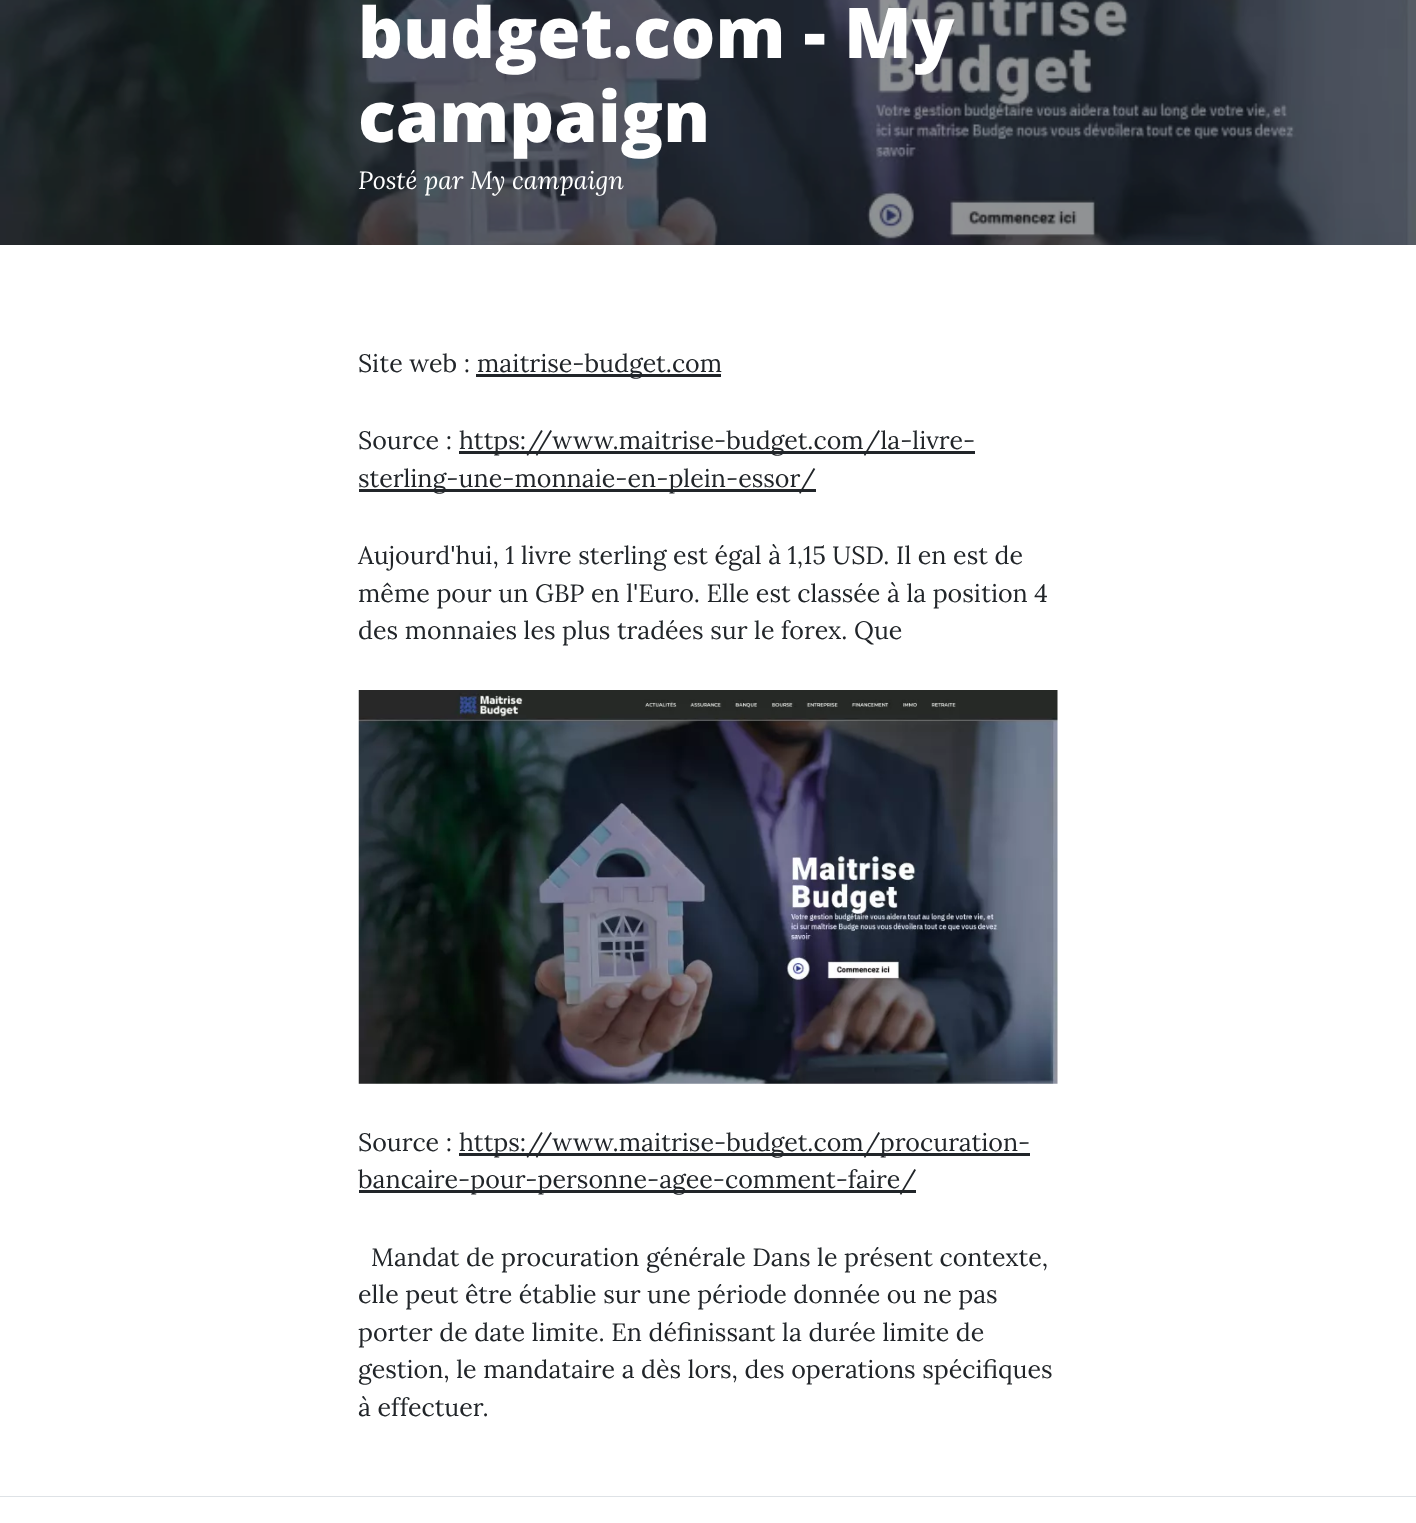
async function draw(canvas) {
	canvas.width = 1416;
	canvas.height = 1523;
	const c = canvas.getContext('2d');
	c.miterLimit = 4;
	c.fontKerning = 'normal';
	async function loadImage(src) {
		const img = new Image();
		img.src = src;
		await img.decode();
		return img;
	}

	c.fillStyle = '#fff';
	c.fillRect(0, 0, 1416, 1523);
	c.drawImage(await loadImage('img1.png'), 0, 0, 1416, 245);
	c.font = '800 70px Open Sans';
	c.fillText('budget.com - My', 358, 58);
	c.fillText('campaign', 358, 142);
	c.font = 'italic 25px Lora';
	c.fillText('Posté par My campaign', 358, 189);
	c.font = '25px Lora';
	c.fillStyle = '#212529';
	c.fillText('Site web :', 358, 372);
	c.fillRect(476, 374, 245, 3);
	c.fillText('maitrise-budget.com', 477, 372);
	c.fillText('Source :', 358, 449);
	c.fillRect(459, 451, 516, 3);
	c.fillText('https://www.maitrise-budget.com/la-livre-', 459, 449);
	c.fillRect(359, 489, 457, 3);
	for (const [text, x, y] of [
		['sterling-une-monnaie-en-plein-essor/', 358, 487],
		['Aujourd\'hui, 1 livre sterling est égal à 1,15 USD. Il en est de', 358, 564],
		['même pour un GBP en l\'Euro. Elle est classée à la position 4', 358, 602],
		['des monnaies les plus tradées sur le forex. Que', 358, 639],
	]) {
		c.fillText(text, x, y);
	}
	c.drawImage(await loadImage('img2.png'), 358, 690, 700, 394);
	c.fillText('Source :', 358, 1151);
	c.fillRect(459, 1153, 571, 3);
	c.fillText('https://www.maitrise-budget.com/procuration-', 459, 1151);
	c.fillRect(359, 1190, 557, 3);
	for (const [text, x, y] of [
		['bancaire-pour-personne-agee-comment-faire/', 358, 1188],
		['Mandat de procuration générale Dans le présent contexte,', 371, 1266],
		['elle peut être établie sur une période donnée ou ne pas', 358, 1303],
		['porter de date limite. En définissant la durée limite de', 358, 1341],
		['gestion, le mandataire a dès lors, des operations spécifiques', 358, 1378],
		['à effectuer.', 358, 1416],
	]) {
		c.fillText(text, x, y);
	}
	c.fillStyle = '#dee2e6';
	c.fillRect(0, 1496, 1416, 1);
}

draw(document.querySelector('canvas'));
